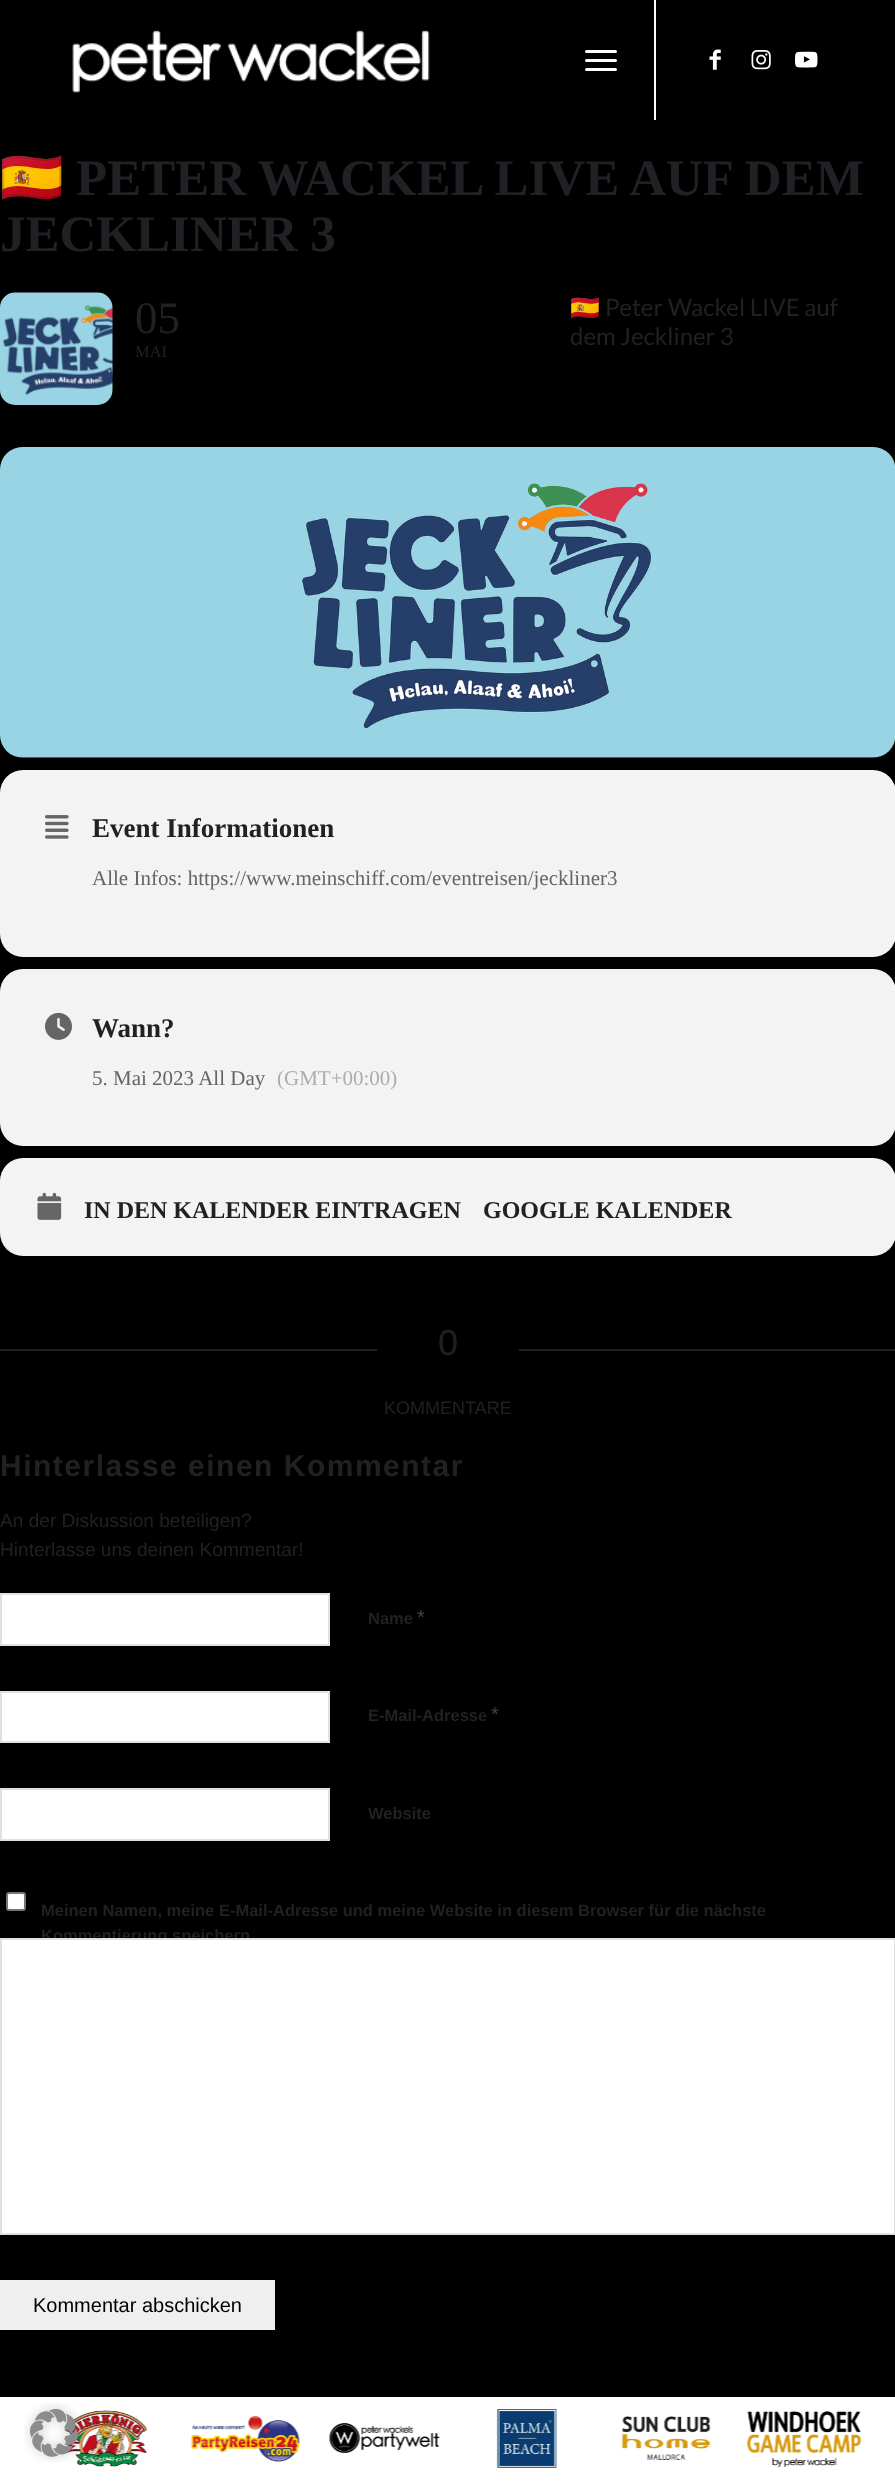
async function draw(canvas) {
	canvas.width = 895;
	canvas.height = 2487;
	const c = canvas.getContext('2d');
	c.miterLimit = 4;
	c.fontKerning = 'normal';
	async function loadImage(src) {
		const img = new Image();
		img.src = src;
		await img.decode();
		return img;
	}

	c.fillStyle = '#000';
	c.fillRect(0, 0, 895, 2487);
	c.drawImage(await loadImage('img1.png'), 72, 30, 358, 63);
	c.fillStyle = '#fff';
	c.fillRect(654, 0, 2, 120);
	c.beginPath();
	c.roundRect(585, 59, 32, 3, 1.5);
	c.fill();
	c.beginPath();
	c.roundRect(585, 50, 32, 3, 1.5);
	c.fill();
	c.beginPath();
	c.roundRect(585, 68, 32, 3, 1.5);
	c.fill();
	c.drawImage(await loadImage('img2.png'), 709, 49, 12, 21);
	c.drawImage(await loadImage('img3.png'), 751, 50, 20, 20);
	c.drawImage(await loadImage('img4.png'), 795, 51, 23, 17);
	c.save();
	c.beginPath();
	c.roundRect(0, 150, 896, 1118, 8);
	c.clip();
	c.font = 'bold 51px Noto Color Emoji';
	c.fillStyle = '#202124';
	c.fillText('🇪🇸', 0, 195);
	c.restore();
	c.font = 'bold 51px Liberation Serif';
	c.fillStyle = '#202124';
	c.fillText('PETER WACKEL LIVE AUF DEM', 76, 195);
	c.fillText('JECKLINER 3', 0, 251);
	c.drawImage(await loadImage('img5.png'), 0, 292, 113, 113);
	c.font = '45px Liberation Serif';
	c.fillText('05', 135, 333);
	c.font = '16.5px Liberation Serif';
	c.fillText('MAI', 135, 357);
	c.font = '24px Noto Color Emoji';
	c.fillText('🇪🇸', 570, 316);
	c.font = '24px Lato';
	c.fillText('Peter Wackel LIVE auf', 605, 316);
	c.fillText('dem Jeckliner 3', 570, 345);
	c.fillStyle = '#333';
	c.beginPath();
	c.roundRect(0, 447, 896, 311, 23);
	c.fill();
	c.drawImage(await loadImage('img6.png'), 0, 447, 895, 311);
	c.fillStyle = '#f3f3f3';
	c.beginPath();
	c.roundRect(0, 770, 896, 187, 23);
	c.fill();
	c.drawImage(await loadImage('img7.png'), 45, 815, 24, 24);
	c.font = 'bold 27px Liberation Serif';
	c.fillStyle = '#202124';
	c.fillText('Event Informationen', 92, 837);
	c.font = '21px Liberation Serif';
	c.fillStyle = '#656565';
	c.fillText('Alle Infos: https://www.meinschiff.com/eventreisen/jeckliner3', 92, 885);
	c.fillStyle = '#f3f3f3';
	c.beginPath();
	c.roundRect(0, 969, 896, 177, 23);
	c.fill();
	c.drawImage(await loadImage('img8.png'), 45, 1012, 27, 28);
	c.font = 'bold 27px Liberation Serif';
	c.fillStyle = '#202124';
	c.fillText('Wann?', 92, 1037);
	c.font = '21px Liberation Serif';
	c.fillStyle = '#656565';
	c.fillText('5. Mai 2023 All Day', 92, 1085);
	c.fillStyle = '#acacac';
	c.fillText('(GMT+00:00)', 277, 1085);
	c.fillStyle = '#f3f3f3';
	c.beginPath();
	c.roundRect(0, 1158, 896, 98, 23);
	c.fill();
	c.drawImage(await loadImage('img9.png'), 37, 1192, 25, 28);
	c.font = 'bold 24px Liberation Serif';
	c.fillStyle = '#202124';
	c.fillText('IN DEN KALENDER EINTRAGEN', 84, 1218);
	c.fillText('GOOGLE KALENDER', 483, 1218);
	c.fillRect(0, 1349, 377, 2);
	c.font = '36px Liberation Sans';
	c.fillText('0', 438, 1355);
	c.fillRect(519, 1349, 376, 2);
	c.font = '18px Liberation Sans';
	c.fillText('KOMMENTARE', 384, 1414);
	c.letterSpacing = '1.5px';
	c.font = 'bold 30px Liberation Sans';
	c.fillText('Hinterlasse einen Kommentar', 0, 1476);
	c.letterSpacing = '0px';
	c.font = '19.1px Liberation Sans';
	c.fillText('An der Diskussion beteiligen?', 0, 1527);
	c.fillText('Hinterlasse uns deinen Kommentar!', 0, 1556);
	c.fillStyle = '#fff';
	c.beginPath();
	c.rect(1, 1594, 328, 51);
	c.fill();
	c.strokeStyle = '#e1e1e1';
	c.lineWidth = 2;
	c.stroke();
	c.font = 'bold 16.5px Liberation Sans';
	c.fillStyle = '#202124';
	c.fillText('Name', 368, 1624);
	c.font = '20px Liberation Sans';
	c.fillStyle = '#444';
	c.fillText('*', 417, 1624);
	c.fillStyle = '#fff';
	c.beginPath();
	c.rect(1, 1692, 328, 50);
	c.fill();
	c.stroke();
	c.font = 'bold 16.5px Liberation Sans';
	c.fillStyle = '#202124';
	c.fillText('E-Mail-Adresse', 368, 1721);
	c.font = '20px Liberation Sans';
	c.fillStyle = '#444';
	c.fillText('*', 491, 1721);
	c.fillStyle = '#fff';
	c.beginPath();
	c.rect(1, 1789, 328, 51);
	c.fill();
	c.stroke();
	c.font = 'bold 16.5px Liberation Sans';
	c.fillStyle = '#202124';
	c.fillText('Website', 368, 1819);
	c.fillStyle = '#fff';
	c.beginPath();
	c.roundRect(7, 1893, 18, 17, 2);
	c.fill();
	c.strokeStyle = '#767676';
	c.stroke();
	c.fillStyle = '#202124';
	c.fillText('Meinen Namen, meine E-Mail-Adresse und meine Website in diesem Browser für die nächste', 41, 1916);
	c.fillText('Kommentierung speichern', 41, 1941);
	c.fillStyle = '#fff';
	c.beginPath();
	c.rect(1, 1939, 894, 295);
	c.fill();
	c.strokeStyle = '#e1e1e1';
	c.stroke();
	c.fillStyle = '#efefef';
	c.fillRect(0, 2280, 275, 50);
	c.font = '20px Liberation Sans';
	c.fillStyle = '#000';
	c.fillText('Kommentar abschicken', 33, 2312);
	c.fillStyle = '#fff';
	c.fillRect(0, 2397, 895, 90);
	c.drawImage(await loadImage('img10.png'), 64, 2410, 83, 57);
	c.drawImage(await loadImage('img11.png'), 190, 2416, 110, 46);
	c.drawImage(await loadImage('img12.png'), 329, 2422, 111, 31);
	c.drawImage(await loadImage('img13.png'), 496, 2409, 61, 59);
	c.drawImage(await loadImage('img14.png'), 621, 2416, 90, 44);
	c.drawImage(await loadImage('img15.png'), 746, 2411, 116, 56);
	c.drawImage(await loadImage('img16.png'), 24, 2403, 60, 60);
}

draw(document.querySelector('canvas'));
